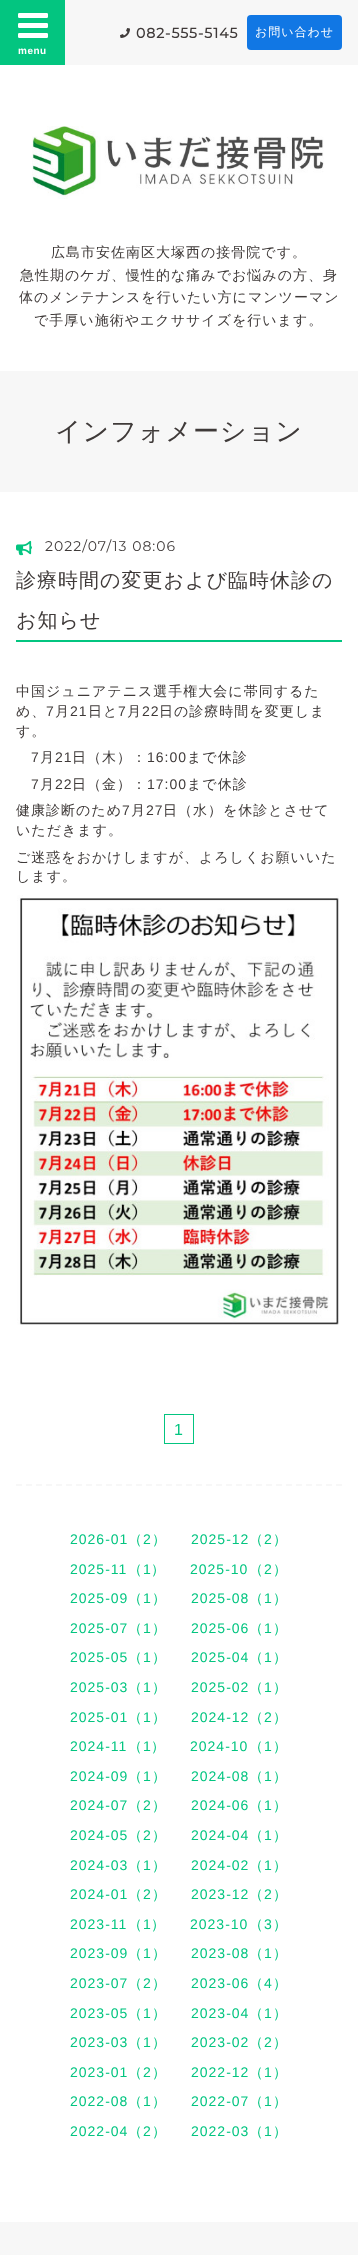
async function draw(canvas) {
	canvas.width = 358;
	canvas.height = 2255;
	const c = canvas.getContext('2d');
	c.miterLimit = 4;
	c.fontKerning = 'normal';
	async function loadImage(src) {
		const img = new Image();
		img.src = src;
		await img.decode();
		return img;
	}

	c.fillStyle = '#fff';
	c.fillRect(0, 0, 358, 2255);
	c.fillStyle = '#f7f7f7';
	c.fillRect(65, 0, 293, 65);
	c.drawImage(await loadImage('img1.png'), 120, 28, 10, 10);
	c.letterSpacing = '1px';
	c.font = 'bold 14px Montserrat';
	c.fillStyle = '#3f3a39';
	c.fillText('082-555-5145', 136, 38);
	c.fillStyle = '#1177e4';
	c.beginPath();
	c.roundRect(247, 15, 95, 35, 4);
	c.fill();
	c.font = '500 12px WenQuanYi Zen Hei';
	c.fillStyle = '#fff';
	c.fillText('お問い合わせ', 255, 36);
	c.fillStyle = '#03c580';
	c.fillRect(0, 0, 65, 65);
	c.drawImage(await loadImage('img2.png'), 18, 13, 30, 25);
	c.letterSpacing = '0.5px';
	c.font = 'bold 10px Liberation Sans';
	c.fillStyle = '#fff';
	c.fillText('menu', 18, 54);
	c.drawImage(await loadImage('img3.png'), 32, 126, 292, 73);
	c.letterSpacing = '1px';
	c.font = '500 14px WenQuanYi Zen Hei';
	c.fillStyle = '#3f3a39';
	for (const [text, x, y] of [
		['広島市安佐南区大塚西の接骨院です。', 51, 257],
		['急性期のケガ、慢性的な痛みでお悩みの方、身', 20, 280],
		['体のメンテナンスを行いたい方にマンツーマン', 19, 302],
		['で手厚い施術やエクササイズを行います。', 34, 325],
	]) {
		c.fillText(text, x, y);
	}
	c.fillStyle = '#f7f7f7';
	c.fillRect(0, 371, 358, 121);
	c.font = '500 26px WenQuanYi Zen Hei';
	c.fillStyle = '#3f3a39';
	c.fillText('インフォメーション', 55, 440);
	c.fillStyle = '#03c580';
	c.fillRect(16, 640, 326, 2);
	c.drawImage(await loadImage('img4.png'), 16, 540, 16, 16);
	c.font = '100 14px Montserrat';
	c.fillStyle = '#3f3a39';
	c.fillText('2022/07/13 08:06', 45, 551);
	c.font = '500 20px WenQuanYi Zen Hei';
	c.fillText('診療時間の変更および臨時休診の', 16, 587);
	c.fillText('お知らせ', 16, 627);
	c.font = '500 14px WenQuanYi Zen Hei';
	c.fillText('中国ジュニアテニス選手権大会に帯同するた', 16, 696);
	c.fillText('め、', 16, 716);
	c.font = '14px Liberation Sans';
	c.fillText('7', 46, 716);
	c.font = '500 14px WenQuanYi Zen Hei';
	c.fillText('月', 55, 716);
	c.font = '14px Liberation Sans';
	c.fillText('21', 70, 716);
	c.font = '500 14px WenQuanYi Zen Hei';
	c.fillText('日と', 88, 716);
	c.font = '14px Liberation Sans';
	c.fillText('7', 118, 716);
	c.font = '500 14px WenQuanYi Zen Hei';
	c.fillText('月', 127, 716);
	c.font = '14px Liberation Sans';
	c.fillText('22', 142, 716);
	c.font = '500 14px WenQuanYi Zen Hei';
	c.fillText('日の診療時間を変更しま', 159, 716);
	c.fillText('す。', 16, 736);
	c.font = '14px Liberation Sans';
	c.fillText('7', 31, 762);
	c.font = '500 14px WenQuanYi Zen Hei';
	c.fillText('月', 40, 762);
	c.font = '14px Liberation Sans';
	c.fillText('21', 55, 762);
	c.font = '500 14px WenQuanYi Zen Hei';
	c.fillText('日（木）：', 72, 762);
	c.font = '14px Liberation Sans';
	c.fillText('16:00', 147, 762);
	c.font = '500 14px WenQuanYi Zen Hei';
	c.fillText('まで休診', 187, 762);
	c.font = '14px Liberation Sans';
	c.fillText('7', 31, 789);
	c.font = '500 14px WenQuanYi Zen Hei';
	c.fillText('月', 40, 789);
	c.font = '14px Liberation Sans';
	c.fillText('22', 55, 789);
	c.font = '500 14px WenQuanYi Zen Hei';
	c.fillText('日（金）：', 72, 789);
	c.font = '14px Liberation Sans';
	c.fillText('17:00', 147, 789);
	c.font = '500 14px WenQuanYi Zen Hei';
	c.fillText('まで休診', 187, 789);
	c.fillText('健康診断のため', 16, 815);
	c.font = '14px Liberation Sans';
	c.fillText('7', 122, 815);
	c.font = '500 14px WenQuanYi Zen Hei';
	c.fillText('月', 131, 815);
	c.font = '14px Liberation Sans';
	c.fillText('27', 146, 815);
	c.font = '500 14px WenQuanYi Zen Hei';
	for (const [text, x, y] of [
		['日（水）を休診とさせて', 163, 815],
		['いただきます。', 16, 835],
		['ご迷惑をおかけしますが、よろしくお願いいた', 16, 862],
		['します。', 16, 881],
	]) {
		c.fillText(text, x, y);
	}
	c.drawImage(await loadImage('img5.png'), 17, 895, 322, 430);
	c.strokeStyle = '#03c580';
	c.strokeRect(164.5, 1414.5, 29, 29);
	c.font = '16px Liberation Sans';
	c.fillStyle = '#03c580';
	c.fillText('1', 174, 1435);
	c.beginPath();
	c.moveTo(16, 1485);
	c.lineTo(342, 1485);
	c.strokeStyle = '#f7f7f7';
	c.lineWidth = 2;
	c.setLineDash([6, 4]);
	c.stroke();
	c.font = '14px Liberation Sans';
	c.fillText('2026-01', 70, 1544);
	c.font = '500 14px WenQuanYi Zen Hei';
	c.fillText('（', 128, 1544);
	c.font = '14px Liberation Sans';
	c.fillText('2', 143, 1544);
	c.font = '500 14px WenQuanYi Zen Hei';
	c.fillText('）', 152, 1544);
	c.font = '14px Liberation Sans';
	c.fillText('2025-12', 191, 1544);
	c.font = '500 14px WenQuanYi Zen Hei';
	c.fillText('（', 249, 1544);
	c.font = '14px Liberation Sans';
	c.fillText('2', 264, 1544);
	c.font = '500 14px WenQuanYi Zen Hei';
	c.fillText('）', 273, 1544);
	c.font = '14px Liberation Sans';
	c.fillText('2025-11', 70, 1574);
	c.font = '500 14px WenQuanYi Zen Hei';
	c.fillText('（', 128, 1574);
	c.font = '14px Liberation Sans';
	c.fillText('1', 143, 1574);
	c.font = '500 14px WenQuanYi Zen Hei';
	c.fillText('）', 151, 1574);
	c.font = '14px Liberation Sans';
	c.fillText('2025-10', 190, 1574);
	c.font = '500 14px WenQuanYi Zen Hei';
	c.fillText('（', 249, 1574);
	c.font = '14px Liberation Sans';
	c.fillText('2', 264, 1574);
	c.font = '500 14px WenQuanYi Zen Hei';
	c.fillText('）', 273, 1574);
	c.font = '14px Liberation Sans';
	c.fillText('2025-09', 70, 1603);
	c.font = '500 14px WenQuanYi Zen Hei';
	c.fillText('（', 128, 1603);
	c.font = '14px Liberation Sans';
	c.fillText('1', 143, 1603);
	c.font = '500 14px WenQuanYi Zen Hei';
	c.fillText('）', 152, 1603);
	c.font = '14px Liberation Sans';
	c.fillText('2025-08', 191, 1603);
	c.font = '500 14px WenQuanYi Zen Hei';
	c.fillText('（', 249, 1603);
	c.font = '14px Liberation Sans';
	c.fillText('1', 264, 1603);
	c.font = '500 14px WenQuanYi Zen Hei';
	c.fillText('）', 273, 1603);
	c.font = '14px Liberation Sans';
	c.fillText('2025-07', 70, 1633);
	c.font = '500 14px WenQuanYi Zen Hei';
	c.fillText('（', 128, 1633);
	c.font = '14px Liberation Sans';
	c.fillText('1', 143, 1633);
	c.font = '500 14px WenQuanYi Zen Hei';
	c.fillText('）', 152, 1633);
	c.font = '14px Liberation Sans';
	c.fillText('2025-06', 191, 1633);
	c.font = '500 14px WenQuanYi Zen Hei';
	c.fillText('（', 249, 1633);
	c.font = '14px Liberation Sans';
	c.fillText('1', 264, 1633);
	c.font = '500 14px WenQuanYi Zen Hei';
	c.fillText('）', 273, 1633);
	c.font = '14px Liberation Sans';
	c.fillText('2025-05', 70, 1662);
	c.font = '500 14px WenQuanYi Zen Hei';
	c.fillText('（', 128, 1662);
	c.font = '14px Liberation Sans';
	c.fillText('1', 143, 1662);
	c.font = '500 14px WenQuanYi Zen Hei';
	c.fillText('）', 152, 1662);
	c.font = '14px Liberation Sans';
	c.fillText('2025-04', 191, 1662);
	c.font = '500 14px WenQuanYi Zen Hei';
	c.fillText('（', 249, 1662);
	c.font = '14px Liberation Sans';
	c.fillText('1', 264, 1662);
	c.font = '500 14px WenQuanYi Zen Hei';
	c.fillText('）', 273, 1662);
	c.font = '14px Liberation Sans';
	c.fillText('2025-03', 70, 1692);
	c.font = '500 14px WenQuanYi Zen Hei';
	c.fillText('（', 128, 1692);
	c.font = '14px Liberation Sans';
	c.fillText('1', 143, 1692);
	c.font = '500 14px WenQuanYi Zen Hei';
	c.fillText('）', 152, 1692);
	c.font = '14px Liberation Sans';
	c.fillText('2025-02', 191, 1692);
	c.font = '500 14px WenQuanYi Zen Hei';
	c.fillText('（', 249, 1692);
	c.font = '14px Liberation Sans';
	c.fillText('1', 264, 1692);
	c.font = '500 14px WenQuanYi Zen Hei';
	c.fillText('）', 273, 1692);
	c.font = '14px Liberation Sans';
	c.fillText('2025-01', 70, 1722);
	c.font = '500 14px WenQuanYi Zen Hei';
	c.fillText('（', 128, 1722);
	c.font = '14px Liberation Sans';
	c.fillText('1', 143, 1722);
	c.font = '500 14px WenQuanYi Zen Hei';
	c.fillText('）', 152, 1722);
	c.font = '14px Liberation Sans';
	c.fillText('2024-12', 191, 1722);
	c.font = '500 14px WenQuanYi Zen Hei';
	c.fillText('（', 249, 1722);
	c.font = '14px Liberation Sans';
	c.fillText('2', 264, 1722);
	c.font = '500 14px WenQuanYi Zen Hei';
	c.fillText('）', 273, 1722);
	c.font = '14px Liberation Sans';
	c.fillText('2024-11', 70, 1751);
	c.font = '500 14px WenQuanYi Zen Hei';
	c.fillText('（', 128, 1751);
	c.font = '14px Liberation Sans';
	c.fillText('1', 143, 1751);
	c.font = '500 14px WenQuanYi Zen Hei';
	c.fillText('）', 151, 1751);
	c.font = '14px Liberation Sans';
	c.fillText('2024-10', 190, 1751);
	c.font = '500 14px WenQuanYi Zen Hei';
	c.fillText('（', 249, 1751);
	c.font = '14px Liberation Sans';
	c.fillText('1', 264, 1751);
	c.font = '500 14px WenQuanYi Zen Hei';
	c.fillText('）', 273, 1751);
	c.font = '14px Liberation Sans';
	c.fillText('2024-09', 70, 1781);
	c.font = '500 14px WenQuanYi Zen Hei';
	c.fillText('（', 128, 1781);
	c.font = '14px Liberation Sans';
	c.fillText('1', 143, 1781);
	c.font = '500 14px WenQuanYi Zen Hei';
	c.fillText('）', 152, 1781);
	c.font = '14px Liberation Sans';
	c.fillText('2024-08', 191, 1781);
	c.font = '500 14px WenQuanYi Zen Hei';
	c.fillText('（', 249, 1781);
	c.font = '14px Liberation Sans';
	c.fillText('1', 264, 1781);
	c.font = '500 14px WenQuanYi Zen Hei';
	c.fillText('）', 273, 1781);
	c.font = '14px Liberation Sans';
	c.fillText('2024-07', 70, 1810);
	c.font = '500 14px WenQuanYi Zen Hei';
	c.fillText('（', 128, 1810);
	c.font = '14px Liberation Sans';
	c.fillText('2', 143, 1810);
	c.font = '500 14px WenQuanYi Zen Hei';
	c.fillText('）', 152, 1810);
	c.font = '14px Liberation Sans';
	c.fillText('2024-06', 191, 1810);
	c.font = '500 14px WenQuanYi Zen Hei';
	c.fillText('（', 249, 1810);
	c.font = '14px Liberation Sans';
	c.fillText('1', 264, 1810);
	c.font = '500 14px WenQuanYi Zen Hei';
	c.fillText('）', 273, 1810);
	c.font = '14px Liberation Sans';
	c.fillText('2024-05', 70, 1840);
	c.font = '500 14px WenQuanYi Zen Hei';
	c.fillText('（', 128, 1840);
	c.font = '14px Liberation Sans';
	c.fillText('2', 143, 1840);
	c.font = '500 14px WenQuanYi Zen Hei';
	c.fillText('）', 152, 1840);
	c.font = '14px Liberation Sans';
	c.fillText('2024-04', 191, 1840);
	c.font = '500 14px WenQuanYi Zen Hei';
	c.fillText('（', 249, 1840);
	c.font = '14px Liberation Sans';
	c.fillText('1', 264, 1840);
	c.font = '500 14px WenQuanYi Zen Hei';
	c.fillText('）', 273, 1840);
	c.font = '14px Liberation Sans';
	c.fillText('2024-03', 70, 1870);
	c.font = '500 14px WenQuanYi Zen Hei';
	c.fillText('（', 128, 1870);
	c.font = '14px Liberation Sans';
	c.fillText('1', 143, 1870);
	c.font = '500 14px WenQuanYi Zen Hei';
	c.fillText('）', 152, 1870);
	c.font = '14px Liberation Sans';
	c.fillText('2024-02', 191, 1870);
	c.font = '500 14px WenQuanYi Zen Hei';
	c.fillText('（', 249, 1870);
	c.font = '14px Liberation Sans';
	c.fillText('1', 264, 1870);
	c.font = '500 14px WenQuanYi Zen Hei';
	c.fillText('）', 273, 1870);
	c.font = '14px Liberation Sans';
	c.fillText('2024-01', 70, 1899);
	c.font = '500 14px WenQuanYi Zen Hei';
	c.fillText('（', 128, 1899);
	c.font = '14px Liberation Sans';
	c.fillText('2', 143, 1899);
	c.font = '500 14px WenQuanYi Zen Hei';
	c.fillText('）', 152, 1899);
	c.font = '14px Liberation Sans';
	c.fillText('2023-12', 191, 1899);
	c.font = '500 14px WenQuanYi Zen Hei';
	c.fillText('（', 249, 1899);
	c.font = '14px Liberation Sans';
	c.fillText('2', 264, 1899);
	c.font = '500 14px WenQuanYi Zen Hei';
	c.fillText('）', 273, 1899);
	c.font = '14px Liberation Sans';
	c.fillText('2023-11', 70, 1929);
	c.font = '500 14px WenQuanYi Zen Hei';
	c.fillText('（', 128, 1929);
	c.font = '14px Liberation Sans';
	c.fillText('1', 143, 1929);
	c.font = '500 14px WenQuanYi Zen Hei';
	c.fillText('）', 151, 1929);
	c.font = '14px Liberation Sans';
	c.fillText('2023-10', 190, 1929);
	c.font = '500 14px WenQuanYi Zen Hei';
	c.fillText('（', 249, 1929);
	c.font = '14px Liberation Sans';
	c.fillText('3', 264, 1929);
	c.font = '500 14px WenQuanYi Zen Hei';
	c.fillText('）', 273, 1929);
	c.font = '14px Liberation Sans';
	c.fillText('2023-09', 70, 1958);
	c.font = '500 14px WenQuanYi Zen Hei';
	c.fillText('（', 128, 1958);
	c.font = '14px Liberation Sans';
	c.fillText('1', 143, 1958);
	c.font = '500 14px WenQuanYi Zen Hei';
	c.fillText('）', 152, 1958);
	c.font = '14px Liberation Sans';
	c.fillText('2023-08', 191, 1958);
	c.font = '500 14px WenQuanYi Zen Hei';
	c.fillText('（', 249, 1958);
	c.font = '14px Liberation Sans';
	c.fillText('1', 264, 1958);
	c.font = '500 14px WenQuanYi Zen Hei';
	c.fillText('）', 273, 1958);
	c.font = '14px Liberation Sans';
	c.fillText('2023-07', 70, 1988);
	c.font = '500 14px WenQuanYi Zen Hei';
	c.fillText('（', 128, 1988);
	c.font = '14px Liberation Sans';
	c.fillText('2', 143, 1988);
	c.font = '500 14px WenQuanYi Zen Hei';
	c.fillText('）', 152, 1988);
	c.font = '14px Liberation Sans';
	c.fillText('2023-06', 191, 1988);
	c.font = '500 14px WenQuanYi Zen Hei';
	c.fillText('（', 249, 1988);
	c.font = '14px Liberation Sans';
	c.fillText('4', 264, 1988);
	c.font = '500 14px WenQuanYi Zen Hei';
	c.fillText('）', 273, 1988);
	c.font = '14px Liberation Sans';
	c.fillText('2023-05', 70, 2018);
	c.font = '500 14px WenQuanYi Zen Hei';
	c.fillText('（', 128, 2018);
	c.font = '14px Liberation Sans';
	c.fillText('1', 143, 2018);
	c.font = '500 14px WenQuanYi Zen Hei';
	c.fillText('）', 152, 2018);
	c.font = '14px Liberation Sans';
	c.fillText('2023-04', 191, 2018);
	c.font = '500 14px WenQuanYi Zen Hei';
	c.fillText('（', 249, 2018);
	c.font = '14px Liberation Sans';
	c.fillText('1', 264, 2018);
	c.font = '500 14px WenQuanYi Zen Hei';
	c.fillText('）', 273, 2018);
	c.font = '14px Liberation Sans';
	c.fillText('2023-03', 70, 2047);
	c.font = '500 14px WenQuanYi Zen Hei';
	c.fillText('（', 128, 2047);
	c.font = '14px Liberation Sans';
	c.fillText('1', 143, 2047);
	c.font = '500 14px WenQuanYi Zen Hei';
	c.fillText('）', 152, 2047);
	c.font = '14px Liberation Sans';
	c.fillText('2023-02', 191, 2047);
	c.font = '500 14px WenQuanYi Zen Hei';
	c.fillText('（', 249, 2047);
	c.font = '14px Liberation Sans';
	c.fillText('2', 264, 2047);
	c.font = '500 14px WenQuanYi Zen Hei';
	c.fillText('）', 273, 2047);
	c.font = '14px Liberation Sans';
	c.fillText('2023-01', 70, 2077);
	c.font = '500 14px WenQuanYi Zen Hei';
	c.fillText('（', 128, 2077);
	c.font = '14px Liberation Sans';
	c.fillText('2', 143, 2077);
	c.font = '500 14px WenQuanYi Zen Hei';
	c.fillText('）', 152, 2077);
	c.font = '14px Liberation Sans';
	c.fillText('2022-12', 191, 2077);
	c.font = '500 14px WenQuanYi Zen Hei';
	c.fillText('（', 249, 2077);
	c.font = '14px Liberation Sans';
	c.fillText('1', 264, 2077);
	c.font = '500 14px WenQuanYi Zen Hei';
	c.fillText('）', 273, 2077);
	c.font = '14px Liberation Sans';
	c.fillText('2022-08', 70, 2106);
	c.font = '500 14px WenQuanYi Zen Hei';
	c.fillText('（', 128, 2106);
	c.font = '14px Liberation Sans';
	c.fillText('1', 143, 2106);
	c.font = '500 14px WenQuanYi Zen Hei';
	c.fillText('）', 152, 2106);
	c.font = '14px Liberation Sans';
	c.fillText('2022-07', 191, 2106);
	c.font = '500 14px WenQuanYi Zen Hei';
	c.fillText('（', 249, 2106);
	c.font = '14px Liberation Sans';
	c.fillText('1', 264, 2106);
	c.font = '500 14px WenQuanYi Zen Hei';
	c.fillText('）', 273, 2106);
	c.font = '14px Liberation Sans';
	c.fillText('2022-04', 70, 2136);
	c.font = '500 14px WenQuanYi Zen Hei';
	c.fillText('（', 128, 2136);
	c.font = '14px Liberation Sans';
	c.fillText('2', 143, 2136);
	c.font = '500 14px WenQuanYi Zen Hei';
	c.fillText('）', 152, 2136);
	c.font = '14px Liberation Sans';
	c.fillText('2022-03', 191, 2136);
	c.font = '500 14px WenQuanYi Zen Hei';
	c.fillText('（', 249, 2136);
	c.font = '14px Liberation Sans';
	c.fillText('1', 264, 2136);
	c.font = '500 14px WenQuanYi Zen Hei';
	c.fillText('）', 273, 2136);
	c.fillStyle = '#f7f7f7';
	c.fillRect(0, 2222, 358, 33);
}

draw(document.querySelector('canvas'));
